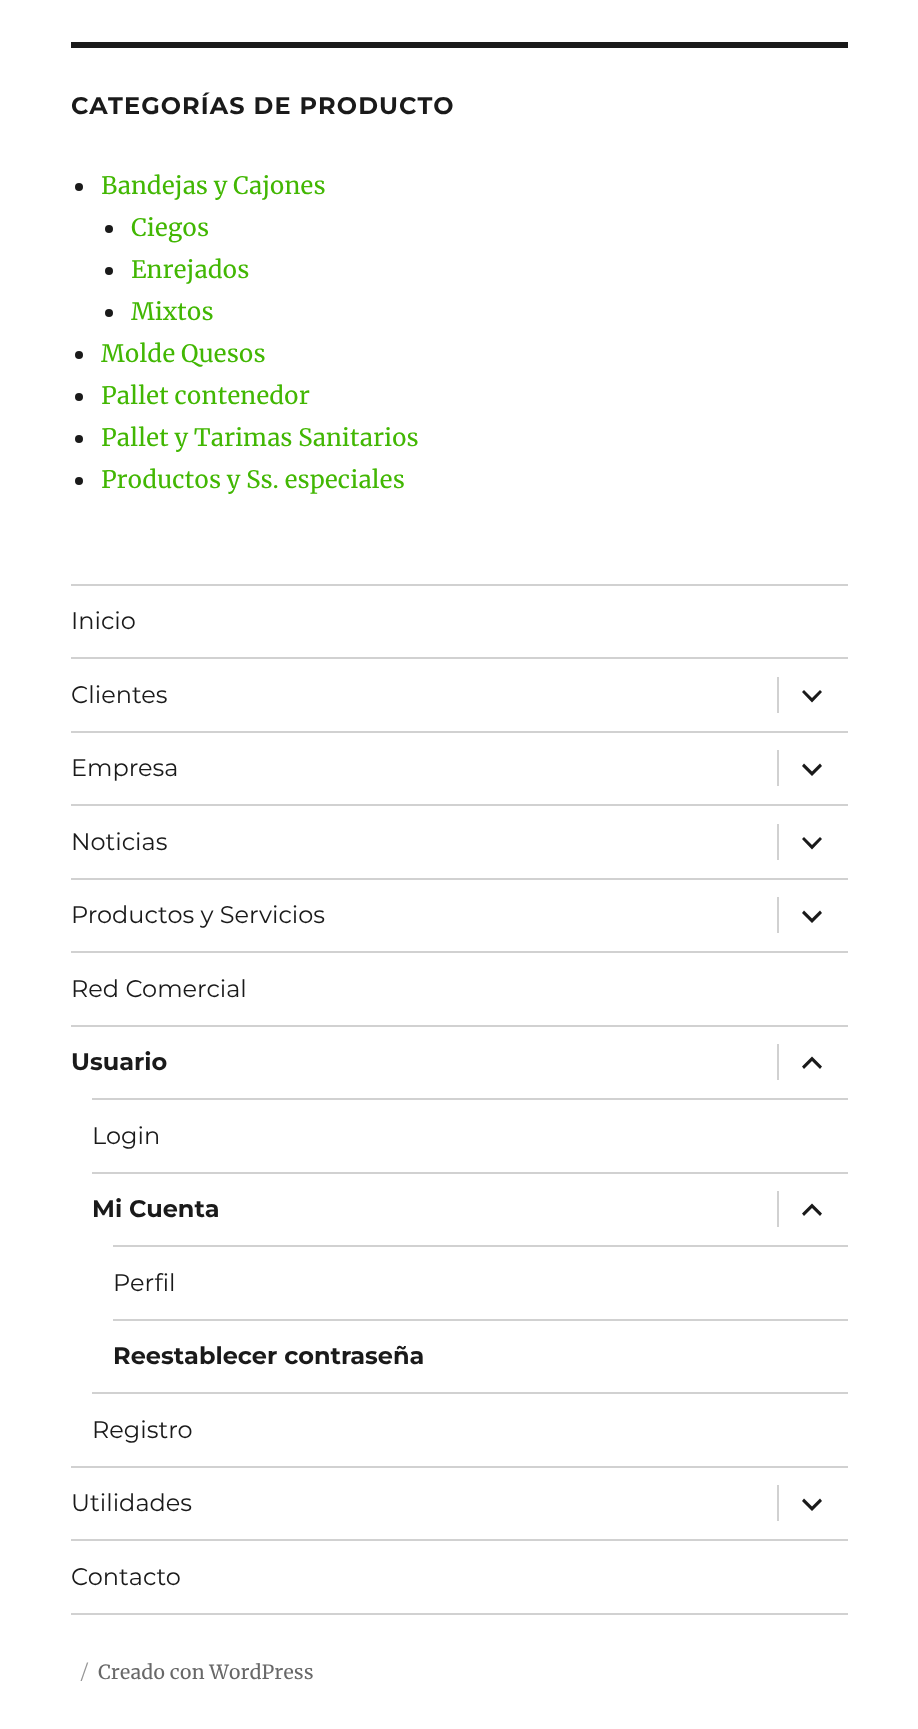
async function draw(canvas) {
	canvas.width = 918;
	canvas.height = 1729;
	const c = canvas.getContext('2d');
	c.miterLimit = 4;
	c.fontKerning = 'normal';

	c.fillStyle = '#fff';
	c.fillRect(0, 0, 918, 1729);
	c.fillStyle = '#1a1a1a';
	c.fillRect(71, 42, 777, 6);
	c.letterSpacing = '1.1px';
	c.font = '100 24px Montserrat';
	c.fillText('CATEGORÍAS DE PRODUCTO', 71, 114);
	c.beginPath();
	c.arc(79, 187, 4, 0, 2 * Math.PI);
	c.fill();
	c.letterSpacing = '0px';
	c.font = '24px Merriweather';
	c.fillStyle = '#42b703';
	c.fillText('Bandejas y Cajones', 101, 194);
	c.fillStyle = '#1a1a1a';
	c.beginPath();
	c.arc(109, 229, 4, 0, 2 * Math.PI);
	c.fill();
	c.fillStyle = '#42b703';
	c.fillText('Ciegos', 131, 236);
	c.fillStyle = '#1a1a1a';
	c.beginPath();
	c.arc(109, 271, 4, 0, 2 * Math.PI);
	c.fill();
	c.fillStyle = '#42b703';
	c.fillText('Enrejados', 131, 278);
	c.fillStyle = '#1a1a1a';
	c.beginPath();
	c.arc(109, 313, 4, 0, 2 * Math.PI);
	c.fill();
	c.fillStyle = '#42b703';
	c.fillText('Mixtos', 131, 320);
	c.fillStyle = '#1a1a1a';
	c.beginPath();
	c.arc(79, 355, 4, 0, 2 * Math.PI);
	c.fill();
	c.fillStyle = '#42b703';
	c.fillText('Molde Quesos', 101, 362);
	c.fillStyle = '#1a1a1a';
	c.beginPath();
	c.arc(79, 397, 4, 0, 2 * Math.PI);
	c.fill();
	c.fillStyle = '#42b703';
	c.fillText('Pallet contenedor', 101, 404);
	c.fillStyle = '#1a1a1a';
	c.beginPath();
	c.arc(79, 439, 4, 0, 2 * Math.PI);
	c.fill();
	c.fillStyle = '#42b703';
	c.fillText('Pallet y Tarimas Sanitarios', 101, 446);
	c.fillStyle = '#1a1a1a';
	c.beginPath();
	c.arc(79, 481, 4, 0, 2 * Math.PI);
	c.fill();
	c.fillStyle = '#42b703';
	c.fillText('Productos y Ss. especiales', 101, 488);
	c.fillStyle = '#d1d1d1';
	c.fillRect(71, 1613, 777, 2);
	c.fillRect(71, 584, 777, 2);
	c.font = '100 24px "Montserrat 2"';
	c.fillStyle = '#1a1a1a';
	c.fillText('Inicio', 71, 629);
	c.fillStyle = '#d1d1d1';
	c.fillRect(71, 657, 777, 2);
	c.fillStyle = '#1a1a1a';
	c.fillText('Clientes', 71, 703);
	c.fillStyle = '#d1d1d1';
	c.fillRect(777, 677, 2, 36);
	c.fillStyle = '#1a1a1a';
	c.beginPath();
	c.moveTo(820, 690);
	c.lineTo(822, 692);
	c.lineTo(812, 702.5);
	c.lineTo(802, 692);
	c.lineTo(804, 690);
	c.lineTo(812, 698);
	c.closePath();
	c.fill();
	c.fillStyle = '#d1d1d1';
	c.fillRect(71, 731, 777, 2);
	c.fillStyle = '#1a1a1a';
	c.fillText('Empresa', 71, 776);
	c.fillStyle = '#d1d1d1';
	c.fillRect(777, 750, 2, 36);
	c.fillStyle = '#1a1a1a';
	c.beginPath();
	c.moveTo(820, 763.5);
	c.lineTo(822, 766);
	c.lineTo(812, 776);
	c.lineTo(802, 766);
	c.lineTo(804, 763.5);
	c.lineTo(812, 771.5);
	c.closePath();
	c.fill();
	c.fillStyle = '#d1d1d1';
	c.fillRect(71, 804, 777, 2);
	c.fillStyle = '#1a1a1a';
	c.fillText('Noticias', 71, 850);
	c.fillStyle = '#d1d1d1';
	c.fillRect(777, 824, 2, 36);
	c.fillStyle = '#1a1a1a';
	c.beginPath();
	c.moveTo(820, 837);
	c.lineTo(822, 839);
	c.lineTo(812, 849.5);
	c.lineTo(802, 839);
	c.lineTo(804, 837);
	c.lineTo(812, 845);
	c.closePath();
	c.fill();
	c.fillStyle = '#d1d1d1';
	c.fillRect(71, 878, 777, 2);
	c.fillStyle = '#1a1a1a';
	c.fillText('Productos y Servicios', 71, 923);
	c.fillStyle = '#d1d1d1';
	c.fillRect(777, 897, 2, 36);
	c.fillStyle = '#1a1a1a';
	c.beginPath();
	c.moveTo(820, 910.5);
	c.lineTo(822, 913);
	c.lineTo(812, 923);
	c.lineTo(802, 913);
	c.lineTo(804, 910.5);
	c.lineTo(812, 918.5);
	c.closePath();
	c.fill();
	c.fillStyle = '#d1d1d1';
	c.fillRect(71, 951, 777, 2);
	c.fillStyle = '#1a1a1a';
	c.fillText('Red Comercial', 71, 997);
	c.fillStyle = '#d1d1d1';
	c.fillRect(71, 1025, 777, 2);
	c.font = '100 24px Montserrat';
	c.fillStyle = '#1a1a1a';
	c.fillText('Usuario', 71, 1070);
	c.fillStyle = '#d1d1d1';
	c.fillRect(777, 1044, 2, 36);
	c.fillStyle = '#1a1a1a';
	c.beginPath();
	c.moveTo(820, 1069);
	c.lineTo(812, 1061);
	c.lineTo(804, 1069);
	c.lineTo(802, 1066.5);
	c.lineTo(812, 1056.5);
	c.lineTo(822, 1066.5);
	c.closePath();
	c.fill();
	c.fillStyle = '#d1d1d1';
	c.fillRect(92, 1098, 756, 2);
	c.font = '100 24px "Montserrat 2"';
	c.fillStyle = '#1a1a1a';
	c.fillText('Login', 92, 1144);
	c.fillStyle = '#d1d1d1';
	c.fillRect(92, 1172, 756, 2);
	c.font = '100 24px Montserrat';
	c.fillStyle = '#1a1a1a';
	c.fillText('Mi Cuenta', 92, 1217);
	c.fillStyle = '#d1d1d1';
	c.fillRect(777, 1191, 2, 36);
	c.fillStyle = '#1a1a1a';
	c.beginPath();
	c.moveTo(820, 1216);
	c.lineTo(812, 1208);
	c.lineTo(804, 1216);
	c.lineTo(802, 1213.5);
	c.lineTo(812, 1203.5);
	c.lineTo(822, 1213.5);
	c.closePath();
	c.fill();
	c.fillStyle = '#d1d1d1';
	c.fillRect(113, 1245, 735, 2);
	c.font = '100 24px "Montserrat 2"';
	c.fillStyle = '#1a1a1a';
	c.fillText('Perfil', 113, 1291);
	c.fillStyle = '#d1d1d1';
	c.fillRect(113, 1319, 735, 2);
	c.font = '100 24px Montserrat';
	c.fillStyle = '#1a1a1a';
	c.fillText('Reestablecer contraseña', 113, 1364);
	c.fillStyle = '#d1d1d1';
	c.fillRect(92, 1392, 756, 2);
	c.font = '100 24px "Montserrat 2"';
	c.fillStyle = '#1a1a1a';
	c.fillText('Registro', 92, 1438);
	c.fillStyle = '#d1d1d1';
	c.fillRect(71, 1466, 777, 2);
	c.fillStyle = '#1a1a1a';
	c.fillText('Utilidades', 71, 1511);
	c.fillStyle = '#d1d1d1';
	c.fillRect(777, 1485, 2, 36);
	c.fillStyle = '#1a1a1a';
	c.beginPath();
	c.moveTo(820, 1498.5);
	c.lineTo(822, 1501);
	c.lineTo(812, 1511);
	c.lineTo(802, 1501);
	c.lineTo(804, 1498.5);
	c.lineTo(812, 1506.5);
	c.closePath();
	c.fill();
	c.fillStyle = '#d1d1d1';
	c.fillRect(71, 1539, 777, 2);
	c.fillStyle = '#1a1a1a';
	c.fillText('Contacto', 71, 1585);
	c.font = '100 19.5px "Montserrat 2"';
	c.fillStyle = '#959595';
	c.fillText('/', 81, 1679);
	c.font = '19.5px Merriweather';
	c.fillStyle = '#686868';
	c.fillText('Creado con WordPress', 98, 1679);
}

draw(document.querySelector('canvas'));
